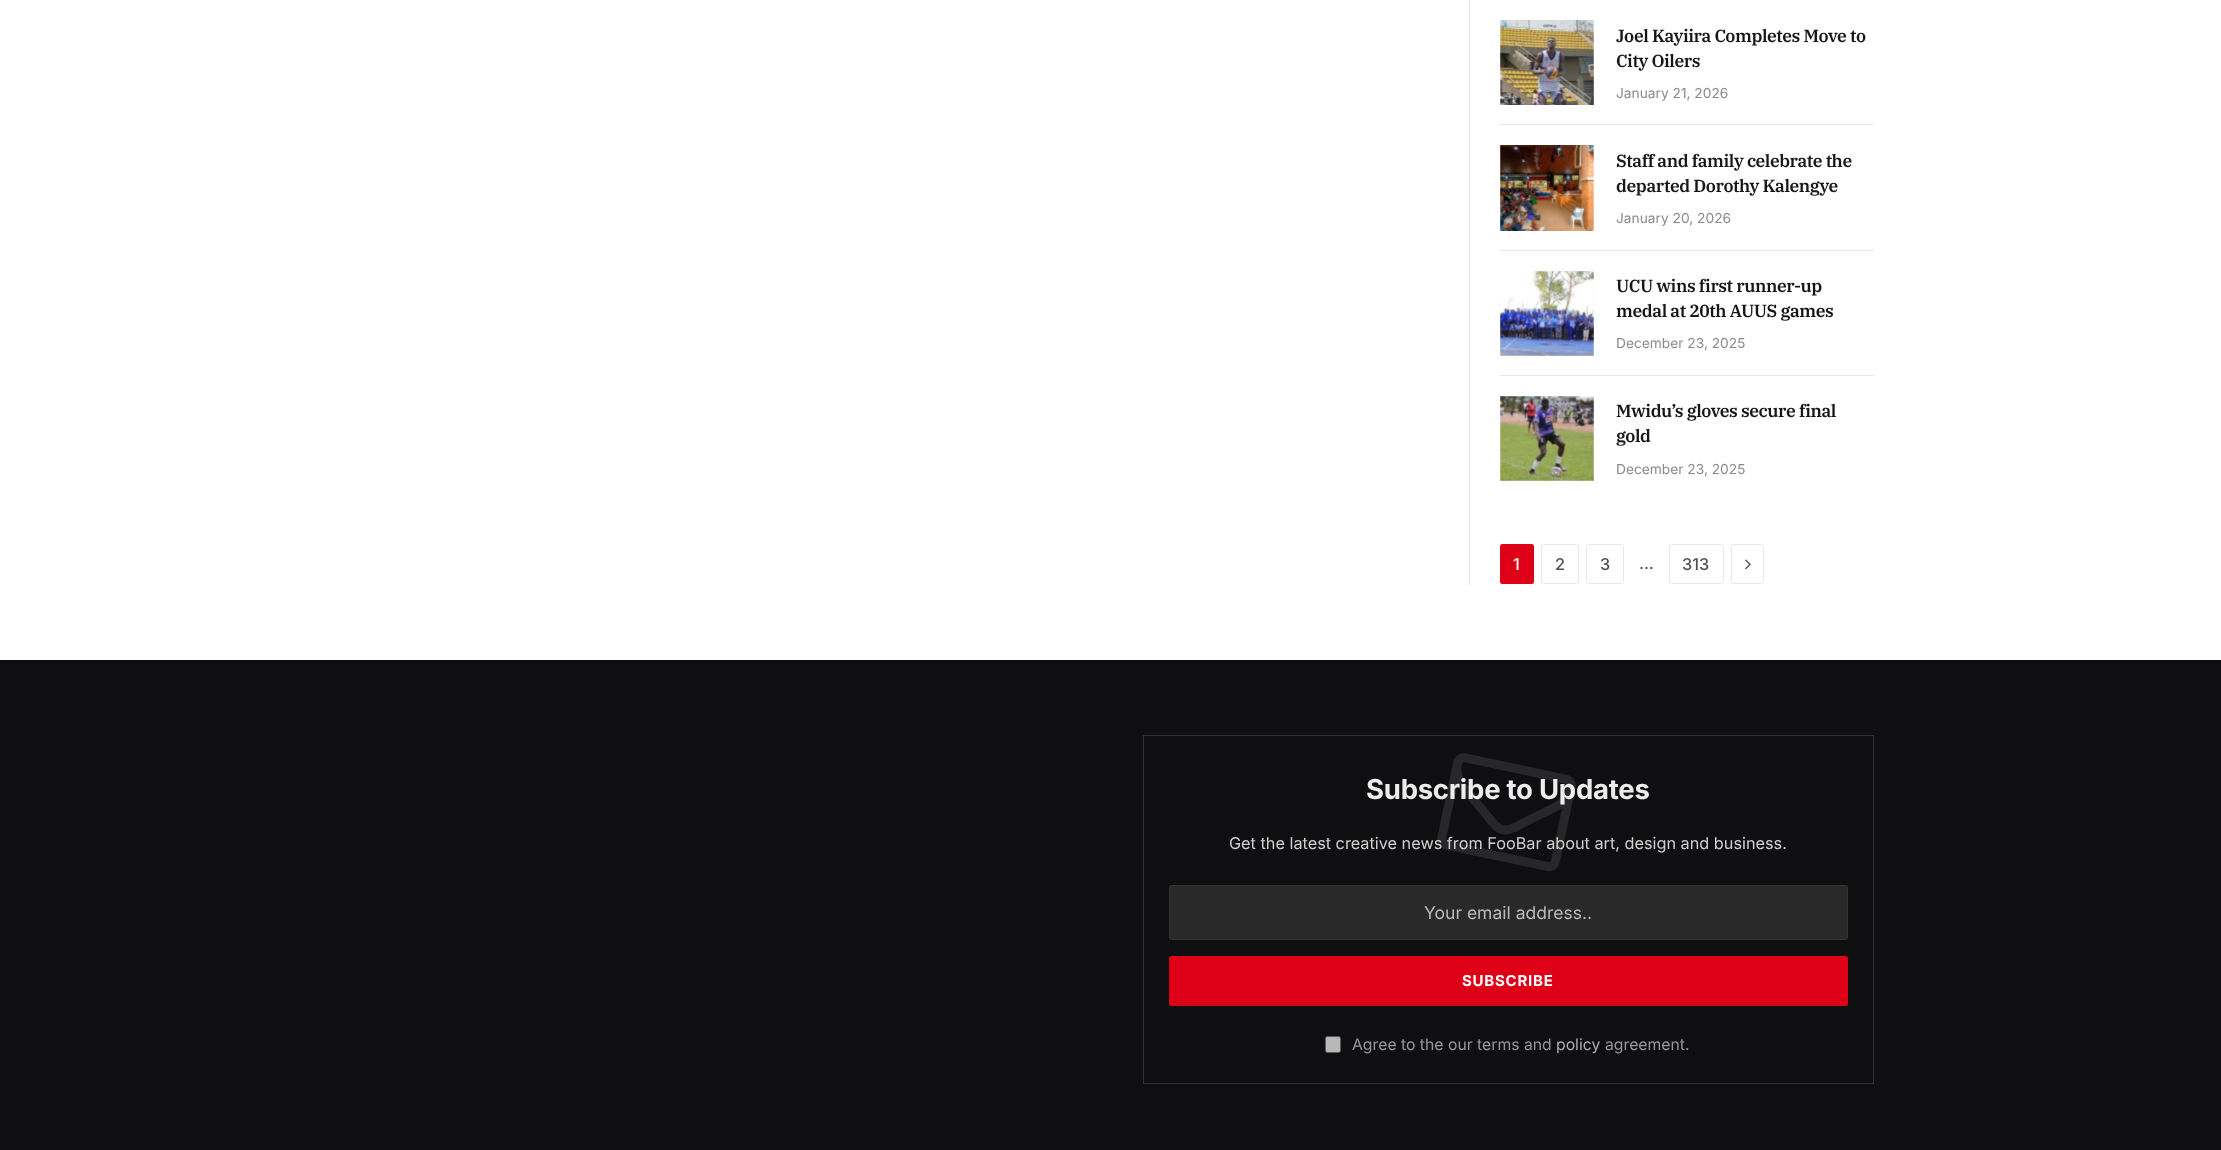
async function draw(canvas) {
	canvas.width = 2221;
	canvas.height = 1150;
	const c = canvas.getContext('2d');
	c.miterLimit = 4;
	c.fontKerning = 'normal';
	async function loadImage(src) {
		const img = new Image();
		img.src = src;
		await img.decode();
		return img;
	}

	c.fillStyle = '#fff';
	c.fillRect(0, 0, 2221, 1150);
	c.fillStyle = '#e2e2e2';
	c.fillRect(1469, 0, 1, 585);
	c.drawImage(await loadImage('img1.png'), 1500, 20, 94, 85);
	c.letterSpacing = '-0.45px';
	c.font = '600 17.5px IBM Plex Serif';
	c.fillStyle = '#161616';
	c.fillText('Joel Kayiira Completes Move to', 1616, 42);
	c.fillText('City Oilers', 1616, 67);
	c.letterSpacing = '0px';
	c.font = '13.75px Inter';
	c.fillStyle = '#8a8a8a';
	c.fillText('January 21, 2026', 1616, 98);
	c.fillStyle = '#e8e8e8';
	c.fillRect(1500, 124, 374, 1);
	c.drawImage(await loadImage('img2.png'), 1500, 145, 94, 86);
	c.letterSpacing = '-0.45px';
	c.font = '600 17.5px IBM Plex Serif';
	c.fillStyle = '#161616';
	c.fillText('Staff and family celebrate the', 1616, 167);
	c.fillText('departed Dorothy Kalengye', 1616, 192);
	c.letterSpacing = '0px';
	c.font = '13.75px Inter';
	c.fillStyle = '#8a8a8a';
	c.fillText('January 20, 2026', 1616, 223);
	c.fillStyle = '#e8e8e8';
	c.fillRect(1500, 250, 374, 1);
	c.drawImage(await loadImage('img3.png'), 1500, 271, 94, 85);
	c.letterSpacing = '-0.45px';
	c.font = '600 17.5px IBM Plex Serif';
	c.fillStyle = '#161616';
	c.fillText('UCU wins first runner-up', 1616, 292);
	c.fillText('medal at 20th AUUS games', 1616, 317);
	c.letterSpacing = '0px';
	c.font = '13.75px Inter';
	c.fillStyle = '#8a8a8a';
	c.fillText('December 23, 2025', 1616, 348);
	c.fillStyle = '#e8e8e8';
	c.fillRect(1500, 375, 374, 1);
	c.drawImage(await loadImage('img4.png'), 1500, 396, 94, 85);
	c.letterSpacing = '-0.45px';
	c.font = '600 17.5px IBM Plex Serif';
	c.fillStyle = '#161616';
	c.fillText('Mwidu’s gloves secure final', 1616, 417);
	c.fillText('gold', 1616, 442);
	c.letterSpacing = '0px';
	c.font = '13.75px Inter';
	c.fillStyle = '#8a8a8a';
	c.fillText('December 23, 2025', 1616, 474);
	c.fillStyle = '#dd0017';
	c.beginPath();
	c.roundRect(1500, 544, 34, 40, 2.5);
	c.fill();
	c.font = '500 16.25px Inter';
	c.fillStyle = '#fff';
	c.fillText('1', 1513, 570);
	c.beginPath();
	c.roundRect(1541.5, 544.5, 37, 39, 2);
	c.strokeStyle = '#e8e8e8';
	c.stroke();
	c.fillStyle = '#505050';
	c.fillText('2', 1555, 570);
	c.beginPath();
	c.roundRect(1586.5, 544.5, 37, 39, 2);
	c.stroke();
	c.fillText('3', 1600, 570);
	c.fillText('…', 1639, 569);
	c.beginPath();
	c.roundRect(1669.5, 544.5, 54, 39, 2);
	c.stroke();
	c.fillText('313', 1682, 570);
	c.beginPath();
	c.roundRect(1731.5, 544.5, 32, 39, 2);
	c.stroke();
	c.drawImage(await loadImage('img5.png'), 1745, 559, 6, 11);
	c.fillStyle = '#0f0f11';
	c.fillRect(0, 660, 2221, 490);
	c.strokeStyle = '#303030';
	c.strokeRect(1143.5, 735.5, 730, 348);
	c.letterSpacing = '-0.25px';
	c.font = 'bold 27.5px Inter';
	c.fillStyle = '#ececec';
	c.fillText('Subscribe to Updates', 1366, 799);
	c.letterSpacing = '0px';
	c.font = '16.25px Inter';
	c.fillStyle = '#cfcfcf';
	c.fillText('Get the latest creative news from FooBar about art, design and business.', 1229, 849);
	c.drawImage(await loadImage('img6.png'), 1437, 753, 139, 118);
	c.fillStyle = '#292929';
	c.beginPath();
	c.roundRect(1169.5, 885.5, 678, 54, 2);
	c.fill();
	c.strokeStyle = '#333';
	c.stroke();
	c.font = '17.5px Inter';
	c.fillStyle = '#bbb';
	c.fillText('Your email address..', 1424, 919);
	c.fillStyle = '#dd0017';
	c.beginPath();
	c.roundRect(1169, 956, 679, 50, 2.5);
	c.fill();
	c.letterSpacing = '0.75px';
	c.font = 'bold 15px Inter';
	c.fillStyle = '#fff';
	c.fillText('SUBSCRIBE', 1462, 986);
	c.fillStyle = '#b8b8b8';
	c.beginPath();
	c.roundRect(1325.5, 1036.5, 15, 16, 2);
	c.fill();
	c.strokeStyle = '#585858';
	c.stroke();
	c.letterSpacing = '0px';
	c.font = '15.75px Inter';
	c.fillStyle = '#979797';
	c.fillText('Agree to the our terms and', 1352, 1050);
	c.fillStyle = '#adadad';
	c.fillText('policy', 1556, 1050);
	c.fillStyle = '#979797';
	c.fillText('agreement.', 1605, 1050);
}

draw(document.querySelector('canvas'));
